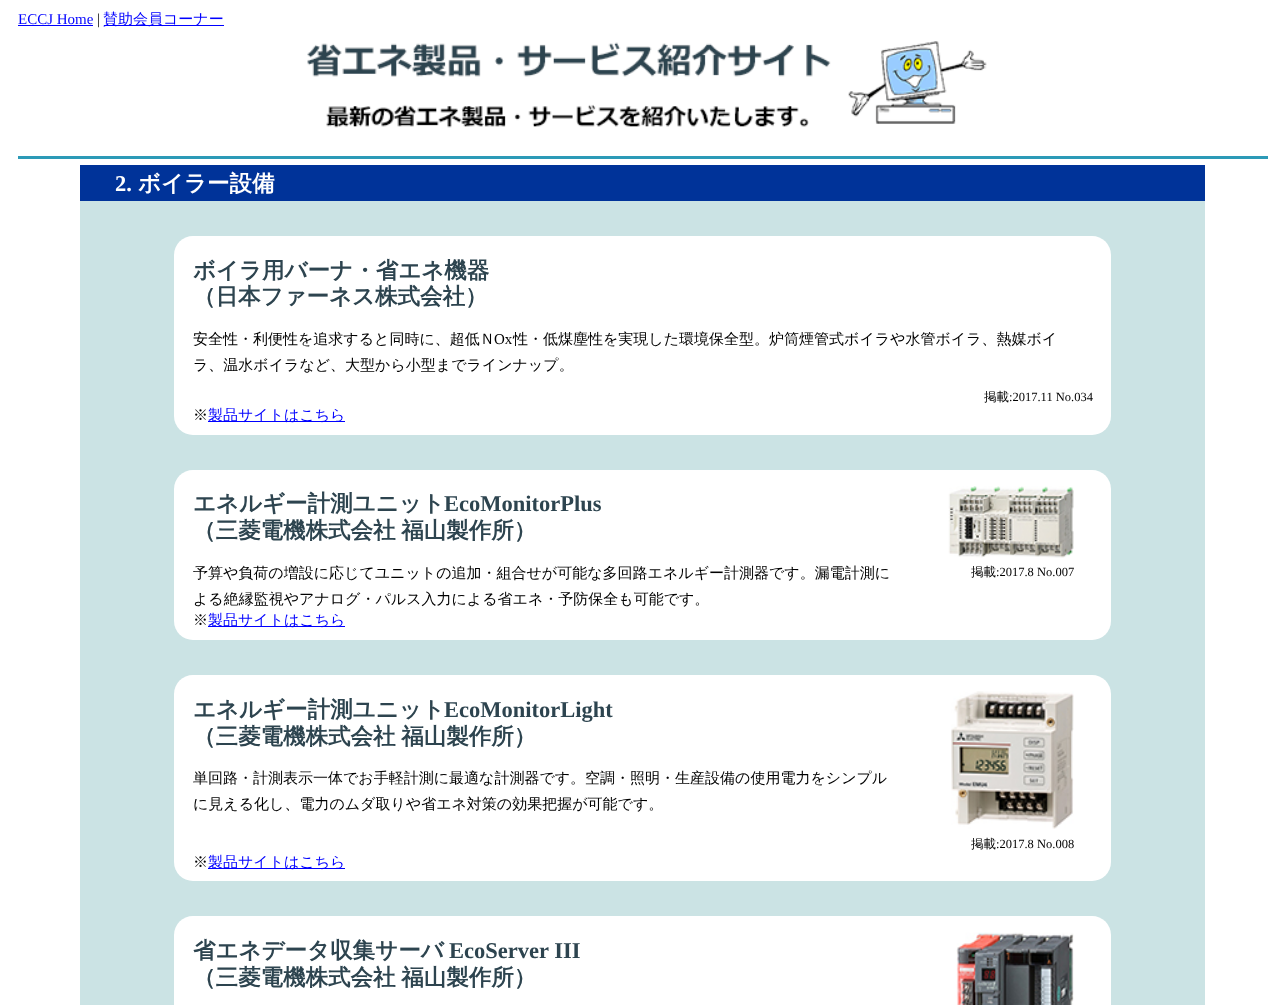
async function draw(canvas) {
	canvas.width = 1282;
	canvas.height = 1005;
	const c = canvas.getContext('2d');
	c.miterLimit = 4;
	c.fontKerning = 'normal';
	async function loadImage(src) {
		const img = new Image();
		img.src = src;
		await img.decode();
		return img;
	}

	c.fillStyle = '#fff';
	c.fillRect(0, 0, 1282, 1005);
	c.fillStyle = '#2c9ab7';
	c.fillRect(18, 156, 1250, 3);
	c.font = '15px Liberation Serif';
	c.fillStyle = '#00f';
	c.fillText('ECCJ Home', 18, 24);
	c.fillRect(18, 25, 75, 1);
	c.fillStyle = '#000';
	c.fillText('|', 97, 24);
	c.fillStyle = '#00f';
	c.fillRect(104, 25, 120, 1);
	c.font = '500 15px WenQuanYi Zen Hei';
	c.fillText('賛助会員コーナー', 103, 24);
	c.drawImage(await loadImage('img1.png'), 307, 41, 680, 87);
	c.fillStyle = '#cbe3e4';
	c.fillRect(80, 201, 1125, 804);
	c.fillStyle = '#039';
	c.fillRect(80, 165, 1125, 36);
	c.font = 'bold 22.5px Liberation Serif';
	c.fillStyle = '#fff';
	c.fillText('2.', 115, 191);
	c.font = 'bold 22.5px WenQuanYi Zen Hei';
	c.fillText('ボイラー設備', 138, 191);
	c.beginPath();
	c.roundRect(174, 236, 937, 199, 19);
	c.fill();
	c.fillStyle = '#2d444f';
	c.fillText('ボイラ用バーナ・省エネ機器', 193, 278);
	c.fillText('（日本ファーネス株式会社）', 193, 304);
	c.font = '500 15px WenQuanYi Zen Hei';
	c.fillStyle = '#000';
	c.fillText('安全性・利便性を追求すると同時に、超低Ｎ', 193, 344);
	c.font = '15px Liberation Serif';
	c.fillText('Ox', 494, 344);
	c.font = '500 15px WenQuanYi Zen Hei';
	c.fillText('性・低煤塵性を実現した環境保全型。炉筒煙管式ボイラや水管ボイラ、熱媒ボイ', 513, 344);
	c.fillText('ラ、温水ボイラなど、大型から小型までラインナップ。', 193, 370);
	c.font = '500 12.5px WenQuanYi Zen Hei';
	c.fillText('掲載', 984, 401);
	c.font = '12.5px Liberation Serif';
	c.fillText(':2017.11 No.034', 1009, 401);
	c.font = '500 15px WenQuanYi Zen Hei';
	c.fillText('※', 193, 420);
	c.fillStyle = '#00f';
	c.fillRect(208, 421, 137, 1);
	c.fillText('製品サイトはこちら', 208, 420);
	c.fillStyle = '#fff';
	c.beginPath();
	c.roundRect(174, 470, 937, 170, 19);
	c.fill();
	c.font = 'bold 22.5px WenQuanYi Zen Hei';
	c.fillStyle = '#2d444f';
	c.fillText('エネルギー計測ユニット', 193, 511);
	c.font = 'bold 22.5px Liberation Serif';
	c.fillText('EcoMonitorPlus', 444, 511);
	c.wordSpacing = '-1px';
	c.font = 'bold 22.5px WenQuanYi Zen Hei';
	c.fillText('（三菱電機株式会社 福山製作所）', 193, 538);
	c.wordSpacing = '0px';
	c.font = '500 15px WenQuanYi Zen Hei';
	c.fillStyle = '#000';
	c.fillText('予算や負荷の増設に応じてユニットの追加・組合せが可能な多回路エネルギー計測器です。漏電計測に', 193, 578);
	c.fillText('よる絶縁監視やアナログ・パルス入力による省エネ・予防保全も可能です。', 193, 604);
	c.drawImage(await loadImage('img2.png'), 948, 486, 126, 72);
	c.font = '500 12.5px WenQuanYi Zen Hei';
	c.fillText('掲載', 971, 576);
	c.font = '12.5px Liberation Serif';
	c.fillText(':2017.8 No.007', 996, 576);
	c.font = '500 15px WenQuanYi Zen Hei';
	c.fillText('※', 193, 625);
	c.fillStyle = '#00f';
	c.fillRect(208, 626, 137, 1);
	c.fillText('製品サイトはこちら', 208, 625);
	c.fillStyle = '#fff';
	c.beginPath();
	c.roundRect(174, 675, 937, 206, 19);
	c.fill();
	c.font = 'bold 22.5px WenQuanYi Zen Hei';
	c.fillStyle = '#2d444f';
	c.fillText('エネルギー計測ユニット', 193, 717);
	c.font = 'bold 22.5px Liberation Serif';
	c.fillText('EcoMonitorLight', 444, 717);
	c.wordSpacing = '-1px';
	c.font = 'bold 22.5px WenQuanYi Zen Hei';
	c.fillText('（三菱電機株式会社 福山製作所）', 193, 744);
	c.wordSpacing = '0px';
	c.font = '500 15px WenQuanYi Zen Hei';
	c.fillStyle = '#000';
	c.fillText('単回路・計測表示一体でお手軽計測に最適な計測器です。空調・照明・生産設備の使用電力をシンプル', 193, 783);
	c.fillText('に見える化し、電力のムダ取りや省エネ対策の効果把握が可能です。', 193, 809);
	c.drawImage(await loadImage('img3.png'), 951, 691, 123, 138);
	c.font = '500 12.5px WenQuanYi Zen Hei';
	c.fillText('掲載', 971, 848);
	c.font = '12.5px Liberation Serif';
	c.fillText(':2017.8 No.008', 996, 848);
	c.font = '500 15px WenQuanYi Zen Hei';
	c.fillText('※', 193, 867);
	c.fillStyle = '#00f';
	c.fillRect(208, 868, 137, 1);
	c.fillText('製品サイトはこちら', 208, 867);
	c.fillStyle = '#fff';
	c.beginPath();
	c.roundRect(174, 916, 937, 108, 19);
	c.fill();
	c.font = 'bold 22.5px WenQuanYi Zen Hei';
	c.fillStyle = '#2d444f';
	c.fillText('省エネデータ収集サーバ', 193, 958);
	c.font = 'bold 22.5px Liberation Serif';
	c.fillText('EcoServer III', 449, 958);
	c.wordSpacing = '-1px';
	c.font = 'bold 22.5px WenQuanYi Zen Hei';
	c.fillText('（三菱電機株式会社 福山製作所）', 193, 985);
	c.drawImage(await loadImage('img4.png'), 956, 932, 118, 73);
}

draw(document.querySelector('canvas'));
